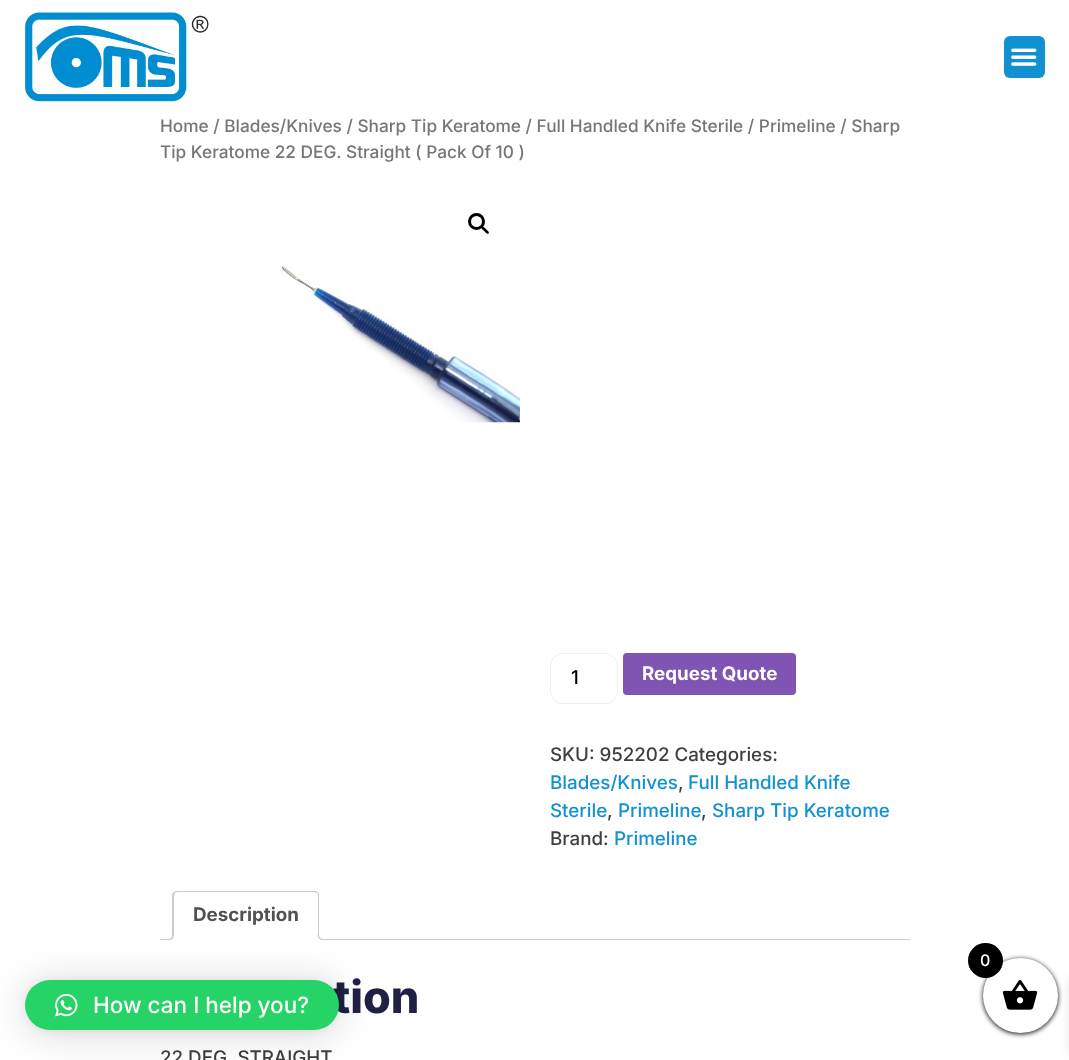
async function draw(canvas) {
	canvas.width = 1069;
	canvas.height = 1060;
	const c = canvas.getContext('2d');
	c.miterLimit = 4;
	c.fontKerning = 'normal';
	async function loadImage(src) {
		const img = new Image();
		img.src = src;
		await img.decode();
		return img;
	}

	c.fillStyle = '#fff';
	c.fillRect(0, 0, 1069, 1060);
	c.drawImage(await loadImage('img1.png'), 25, 12, 184, 90);
	c.fillStyle = '#1291d1';
	c.beginPath();
	c.roundRect(1004, 36, 41, 42, 6);
	c.fill();
	c.drawImage(await loadImage('img2.png'), 1011, 48, 26, 18);
	c.font = '500 17.25px Inter';
	c.fillStyle = '#767676';
	c.fillText('Home / Blades/Knives / Sharp Tip Keratome / Full Handled Knife Sterile / Primeline / Sharp', 160, 132);
	c.fillText('Tip Keratome 22 DEG. Straight ( Pack Of 10 )', 160, 158);
	c.beginPath();
	c.arc(476.5, 221.5, 7, 0, 2 * Math.PI);
	c.strokeStyle = '#000';
	c.lineWidth = 3;
	c.stroke();
	c.fillStyle = '#000';
	c.beginPath();
	c.moveTo(481.5, 226.5);
	c.bezierCurveTo(483, 225, 485, 228.5, 486, 229);
	c.bezierCurveTo(486.5, 230, 490, 232, 488.5, 233.5);
	c.bezierCurveTo(487, 235, 485, 231.5, 484, 231);
	c.bezierCurveTo(483.5, 230, 480, 228, 481.5, 226.5);
	c.closePath();
	c.fill();
	c.drawImage(await loadImage('img3.png'), 280, 264, 240, 159);
	c.beginPath();
	c.roundRect(550.5, 653.5, 67, 50, 12.5);
	c.strokeStyle = '#eee';
	c.lineWidth = 1;
	c.stroke();
	c.font = '500 18.75px Inter';
	c.fillText('1', 571, 684);
	c.fillStyle = '#7f54b3';
	c.beginPath();
	c.roundRect(623, 653, 173, 42, 4);
	c.fill();
	c.font = 'bold 18.75px Inter';
	c.fillStyle = '#fff';
	c.fillText('Request Quote', 642, 680);
	c.font = '500 18.75px Inter';
	c.fillStyle = '#3f3f3f';
	c.fillText('SKU: 952202 Categories:', 550, 761);
	c.fillStyle = '#1291d1';
	c.fillText('Blades/Knives', 550, 789);
	c.fillStyle = '#3f3f3f';
	c.fillText(',', 678, 789);
	c.fillStyle = '#1291d1';
	c.fillText('Full Handled Knife', 688, 789);
	c.fillText('Sterile', 550, 817);
	c.fillStyle = '#3f3f3f';
	c.fillText(',', 607, 817);
	c.fillStyle = '#1291d1';
	c.fillText('Primeline', 618, 817);
	c.fillStyle = '#3f3f3f';
	c.fillText(',', 701, 817);
	c.fillStyle = '#1291d1';
	c.fillText('Sharp Tip Keratome', 712, 817);
	c.fillStyle = '#3f3f3f';
	c.fillText('Brand:', 550, 845);
	c.fillStyle = '#1291d1';
	c.fillText('Primeline', 614, 845);
	c.fillStyle = '#cfc8d8';
	c.fillRect(160, 939, 750, 1);
	c.fillStyle = '#fff';
	c.beginPath();
	c.roundRect(173, 891, 146, 49, [5, 5, 0, 0]);
	c.fill();
	c.fillStyle = '#cfc8d8';
	c.beginPath();
	c.moveTo(178, 892);
	c.bezierCurveTo(176, 892, 175, 893, 175, 893);
	c.lineTo(174, 892);
	c.lineTo(176, 891);
	c.lineTo(316, 891);
	c.lineTo(318, 892);
	c.lineTo(317, 893);
	c.lineTo(314, 892);
	c.closePath();
	c.fill();
	c.beginPath();
	c.moveTo(319, 894);
	c.lineTo(319, 940);
	c.lineTo(318, 939);
	c.lineTo(318, 896);
	c.bezierCurveTo(318, 895, 318, 894, 317, 893);
	c.lineTo(318, 892);
	c.closePath();
	c.fill();
	c.fillStyle = '#fff';
	c.beginPath();
	c.moveTo(319, 940);
	c.lineTo(318, 939);
	c.lineTo(174, 939);
	c.lineTo(174, 938);
	c.lineTo(172, 940);
	c.closePath();
	c.fill();
	c.fillStyle = '#cfc8d8';
	c.beginPath();
	c.moveTo(172, 940);
	c.lineTo(172, 894);
	c.lineTo(174, 892);
	c.lineTo(175, 893);
	c.lineTo(174, 896);
	c.lineTo(174, 938);
	c.closePath();
	c.fill();
	c.font = 'bold 18.75px Inter';
	c.fillStyle = '#515151';
	c.fillText('Description', 193, 921);
	c.save();
	c.beginPath();
	c.rect(160, 891, 750, 49);
	c.clip();
	c.fillStyle = '#fff';
	c.beginPath();
	c.moveTo(170, 940);
	c.lineTo(170, 943);
	c.bezierCurveTo(175, 943, 176, 940.5, 176, 936);
	c.lineTo(173.5, 936);
	c.bezierCurveTo(173.5, 938, 172, 939.5, 170, 940);
	c.closePath();
	c.fill();
	c.restore();
	c.fillStyle = '#cfc8d8';
	c.beginPath();
	c.moveTo(167.5, 934);
	c.lineTo(174, 934);
	c.bezierCurveTo(174, 938, 172, 940, 167.5, 940);
	c.closePath();
	c.moveTo(167.5, 934);
	c.lineTo(172.5, 934);
	c.bezierCurveTo(172.5, 937.5, 171, 939, 167.5, 939);
	c.closePath();
	c.fill('evenodd');
	c.save();
	c.beginPath();
	c.rect(160, 891, 750, 49);
	c.clip();
	c.fillStyle = '#fff';
	c.beginPath();
	c.moveTo(315, 936);
	c.bezierCurveTo(315, 940.5, 316, 943, 321, 943);
	c.lineTo(321, 940);
	c.bezierCurveTo(319.5, 939, 318, 938, 317.5, 936);
	c.closePath();
	c.fill();
	c.restore();
	c.beginPath();
	c.moveTo(317.5, 934);
	c.lineTo(324, 934);
	c.lineTo(324, 940);
	c.bezierCurveTo(320.5, 940, 317.5, 938.5, 317.5, 935);
	c.closePath();
	c.moveTo(319, 934);
	c.lineTo(324, 934);
	c.lineTo(324, 939);
	c.bezierCurveTo(321.5, 939, 319, 938, 319, 935);
	c.closePath();
	c.fill('evenodd');
	c.font = '800 45px Inter';
	c.fillStyle = '#202044';
	c.fillText('tion', 333, 1013);
	c.font = '500 18.75px Inter';
	c.fillStyle = '#3f3f3f';
	c.fillText('22 DEG. STRAIGHT', 160, 1064);
	c.fillStyle = '#000';
	c.filter = 'blur(2.5px)';
	c.beginPath();
	c.roundRect(983, 959, 75, 75, 37.5);
	c.fill();
	c.filter = 'none';
	c.fillStyle = '#0000001a';
	c.filter = 'blur(6px)';
	c.beginPath();
	c.rect(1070, 979, 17, 75);
	c.fill();
	c.filter = 'none';
	c.fillStyle = '#fff';
	c.beginPath();
	c.arc(1020.5, 995.5, 37.5, 0, 2 * Math.PI);
	c.fill();
	c.fillStyle = '#000';
	c.beginPath();
	c.arc(985.5, 960.5, 17.5, 0, 2 * Math.PI);
	c.fill();
	c.font = '500 16px Inter';
	c.fillStyle = '#fff';
	c.fillText('0', 980, 966);
	c.drawImage(await loadImage('img4.png'), 1002, 980, 36, 30);
	c.fillStyle = '#00000029';
	c.filter = 'blur(20px)';
	c.beginPath();
	c.roundRect(25, 983, 314, 50, 25);
	c.fill();
	c.filter = 'none';
	c.fillStyle = '#0000000f';
	c.filter = 'blur(4px)';
	c.beginPath();
	c.roundRect(25, 981, 314, 50, 25);
	c.fill();
	c.filter = 'none';
	c.fillStyle = '#25d366';
	c.beginPath();
	c.roundRect(25, 980, 314, 50, 25);
	c.fill();
	c.drawImage(await loadImage('img5.png'), 55, 993, 23, 24);
	c.font = '500 22.5px Inter';
	c.fillStyle = '#fff';
	c.fillText('How can I help you?', 93, 1013);
}

draw(document.querySelector('canvas'));
